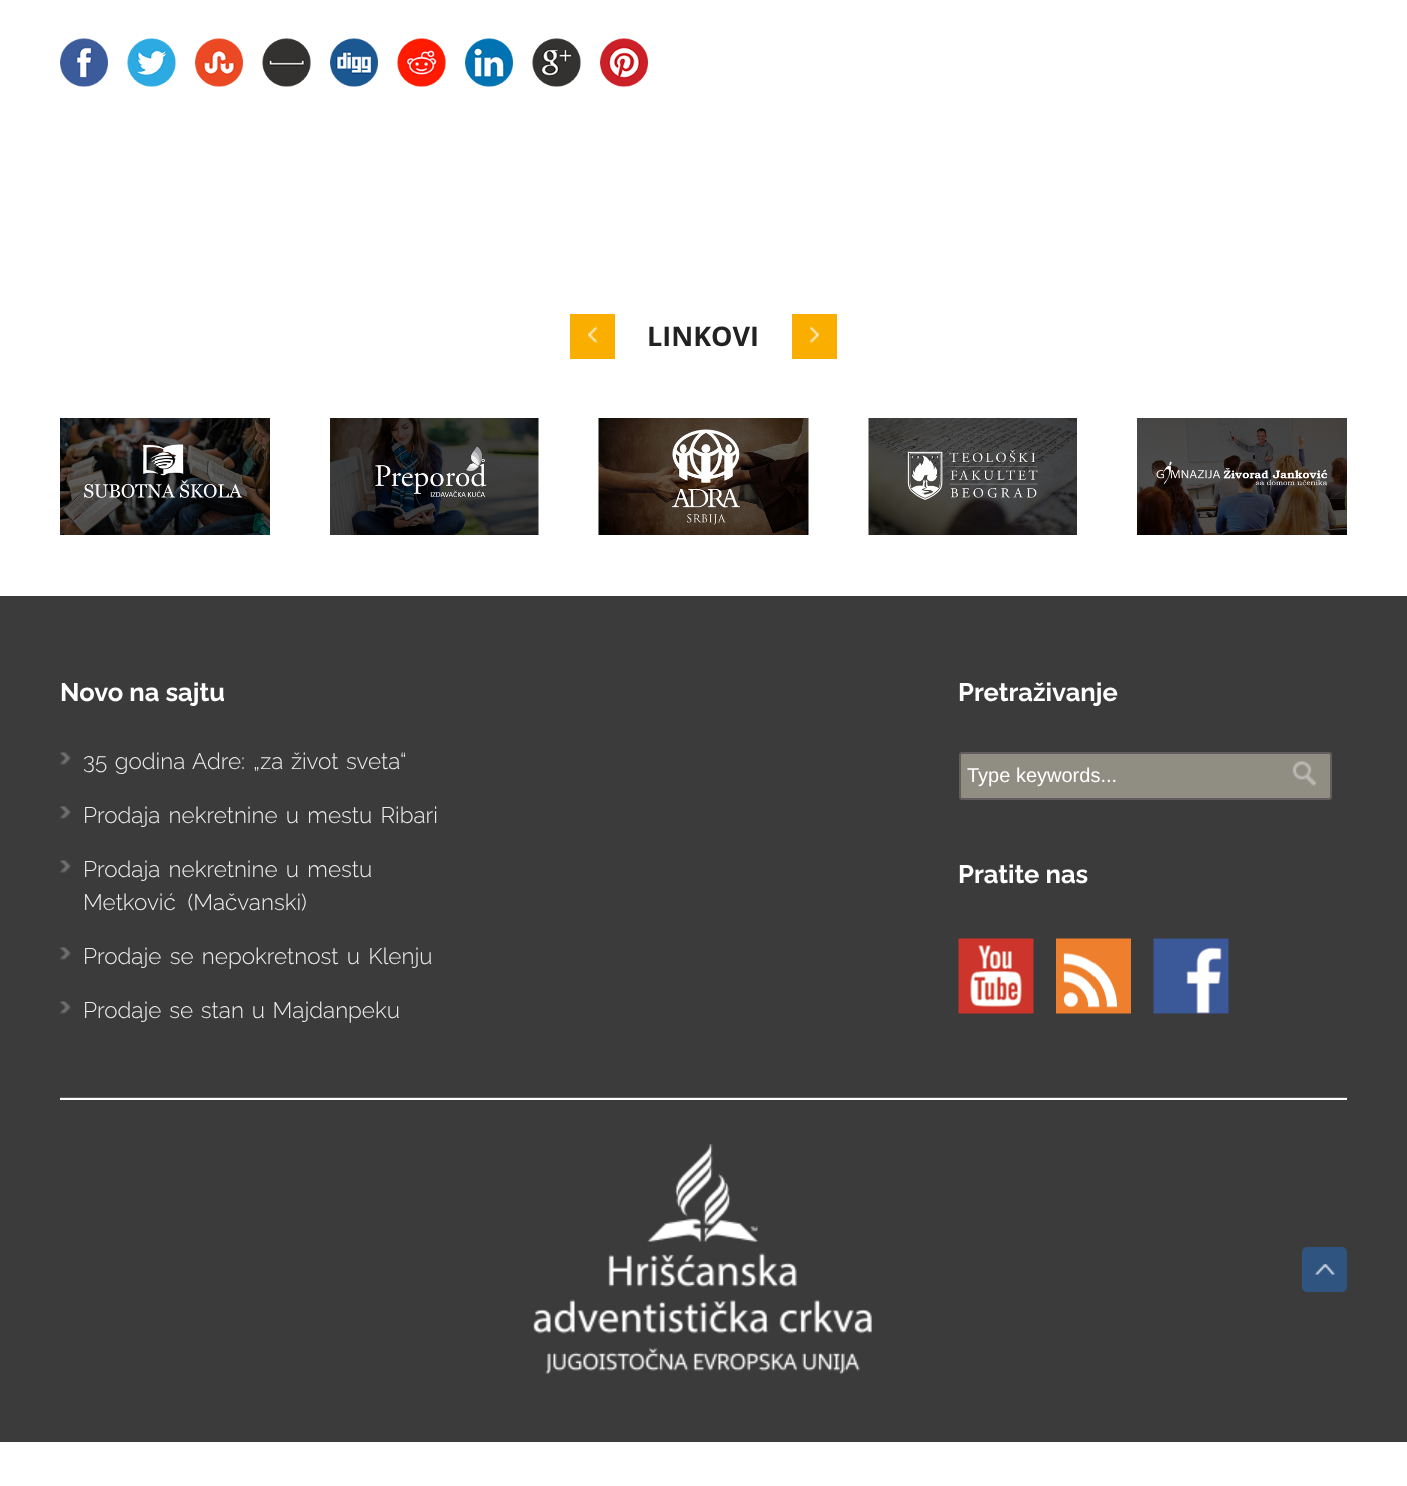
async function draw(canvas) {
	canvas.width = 1407;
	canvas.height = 1486;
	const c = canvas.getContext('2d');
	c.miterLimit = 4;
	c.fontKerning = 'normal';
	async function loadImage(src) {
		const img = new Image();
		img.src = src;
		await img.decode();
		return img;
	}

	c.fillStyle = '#fff';
	c.fillRect(0, 0, 1407, 1486);
	c.drawImage(await loadImage('img1.png'), 60, 38, 48, 49);
	c.drawImage(await loadImage('img2.png'), 127, 38, 49, 49);
	c.drawImage(await loadImage('img3.png'), 195, 38, 48, 49);
	c.drawImage(await loadImage('img4.png'), 262, 38, 49, 49);
	c.drawImage(await loadImage('img5.png'), 330, 38, 48, 49);
	c.drawImage(await loadImage('img6.png'), 397, 38, 49, 49);
	c.drawImage(await loadImage('img7.png'), 465, 38, 48, 49);
	c.drawImage(await loadImage('img8.png'), 532, 38, 49, 49);
	c.drawImage(await loadImage('img9.png'), 600, 38, 48, 49);
	c.fillStyle = '#f9ae00';
	c.fillRect(570, 314, 45, 45);
	c.drawImage(await loadImage('img10.png'), 588, 326, 9, 17);
	c.font = 'bold 27px Open Sans';
	c.fillStyle = '#222';
	c.fillText('LINKOVI', 647, 346);
	c.fillStyle = '#f9ae00';
	c.fillRect(792, 314, 45, 45);
	c.drawImage(await loadImage('img11.png'), 810, 326, 9, 17);
	c.drawImage(await loadImage('img12.png'), 60, 418, 210, 117);
	c.drawImage(await loadImage('img13.png'), 330, 418, 209, 117);
	c.drawImage(await loadImage('img14.png'), 598, 418, 211, 117);
	c.drawImage(await loadImage('img15.png'), 868, 418, 209, 117);
	c.drawImage(await loadImage('img16.png'), 1137, 418, 210, 117);
	c.fillStyle = '#3b3b3b';
	c.fillRect(0, 596, 1407, 846);
	c.font = 'bold 25.5px Raleway';
	c.fillStyle = '#fff';
	c.fillText('Novo na sajtu', 60, 701);
	c.drawImage(await loadImage('img17.png'), 60, 752, 11, 13);
	c.wordSpacing = '1.75px';
	c.font = '300 22.5px Raleway';
	c.fillStyle = '#ededed';
	c.fillText('35 godina Adre: „za život sveta“', 83, 769);
	c.drawImage(await loadImage('img17.png'), 60, 806, 11, 13);
	c.wordSpacing = '2.5px';
	c.fillText('Prodaja nekretnine u mestu Ribari', 83, 823);
	c.drawImage(await loadImage('img17.png'), 60, 860, 11, 13);
	c.fillText('Prodaja nekretnine u mestu', 83, 877);
	c.wordSpacing = '6px';
	c.fillText('Metković (Mačvanski)', 83, 910);
	c.drawImage(await loadImage('img17.png'), 60, 947, 11, 13);
	c.wordSpacing = '2.5px';
	c.fillText('Prodaje se nepokretnost u Klenju', 83, 964);
	c.drawImage(await loadImage('img17.png'), 60, 1001, 11, 13);
	c.wordSpacing = '2px';
	c.fillText('Prodaje se stan u Majdanpeku', 83, 1018);
	c.wordSpacing = '0px';
	c.font = 'bold 25.5px Raleway';
	c.fillStyle = '#fff';
	c.fillText('Pretraživanje', 958, 701);
	c.fillStyle = '#908d83';
	c.beginPath();
	c.roundRect(960, 753, 371, 46, 2);
	c.fill();
	c.strokeStyle = '#635d5d';
	c.lineWidth = 2;
	c.stroke();
	c.font = '20px Liberation Sans';
	c.fillStyle = '#fff';
	c.fillText('Type keywords...', 967, 782);
	c.drawImage(await loadImage('img18.png'), 1292, 761, 25, 25);
	c.font = 'bold 25.5px Raleway';
	c.fillText('Pratite nas', 958, 883);
	c.drawImage(await loadImage('img19.png'), 958, 938, 76, 76);
	c.drawImage(await loadImage('img20.png'), 1056, 938, 75, 76);
	c.drawImage(await loadImage('img21.png'), 1153, 938, 76, 76);
	c.fillStyle = '#635d5d';
	c.fillRect(60, 1097, 1287, 1);
	c.fillStyle = '#fff';
	c.fillRect(60, 1098, 1287, 2);
	c.drawImage(await loadImage('img22.png'), 533, 1144, 339, 230);
	c.fillStyle = '#2f547f';
	c.beginPath();
	c.roundRect(1302, 1247, 45, 45, 5);
	c.fill();
	c.drawImage(await loadImage('img23.png'), 1315, 1264, 20, 11);
}

draw(document.querySelector('canvas'));
